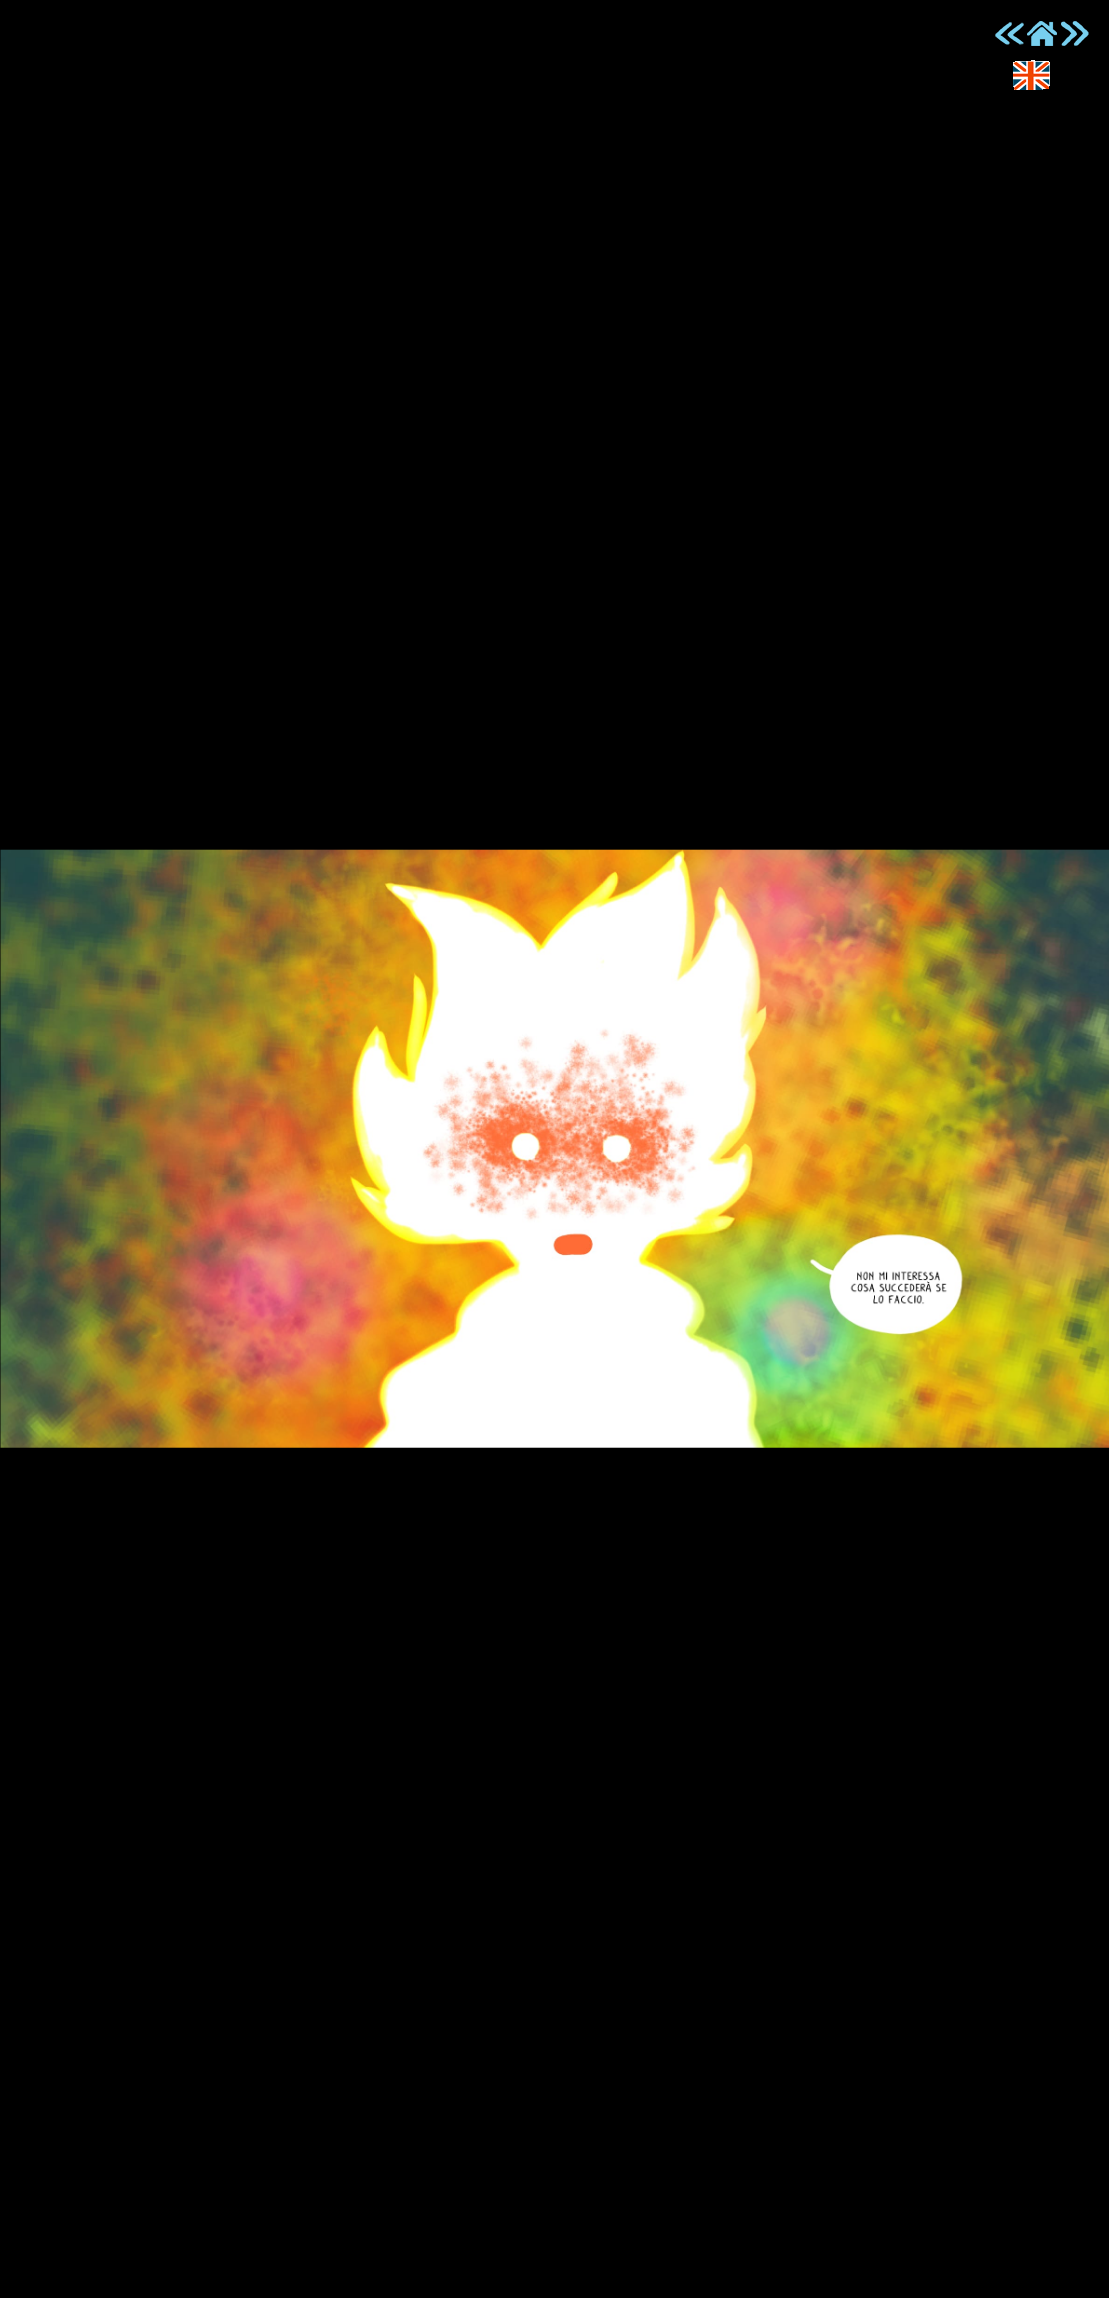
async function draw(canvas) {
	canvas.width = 1109;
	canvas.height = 2298;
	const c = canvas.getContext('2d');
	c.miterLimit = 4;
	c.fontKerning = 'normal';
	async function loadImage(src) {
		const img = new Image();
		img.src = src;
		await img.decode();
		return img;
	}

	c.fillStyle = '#000';
	c.fillRect(0, 0, 1109, 2298);
	c.drawImage(await loadImage('img1.png'), 995, 22, 29, 23);
	c.drawImage(await loadImage('img2.png'), 1027, 21, 30, 25);
	c.drawImage(await loadImage('img3.png'), 1061, 21, 28, 25);
	c.drawImage(await loadImage('img4.png'), 1013, 60, 37, 30);
	c.drawImage(await loadImage('img5.png'), 0, 849, 1109, 599);
}

draw(document.querySelector('canvas'));
